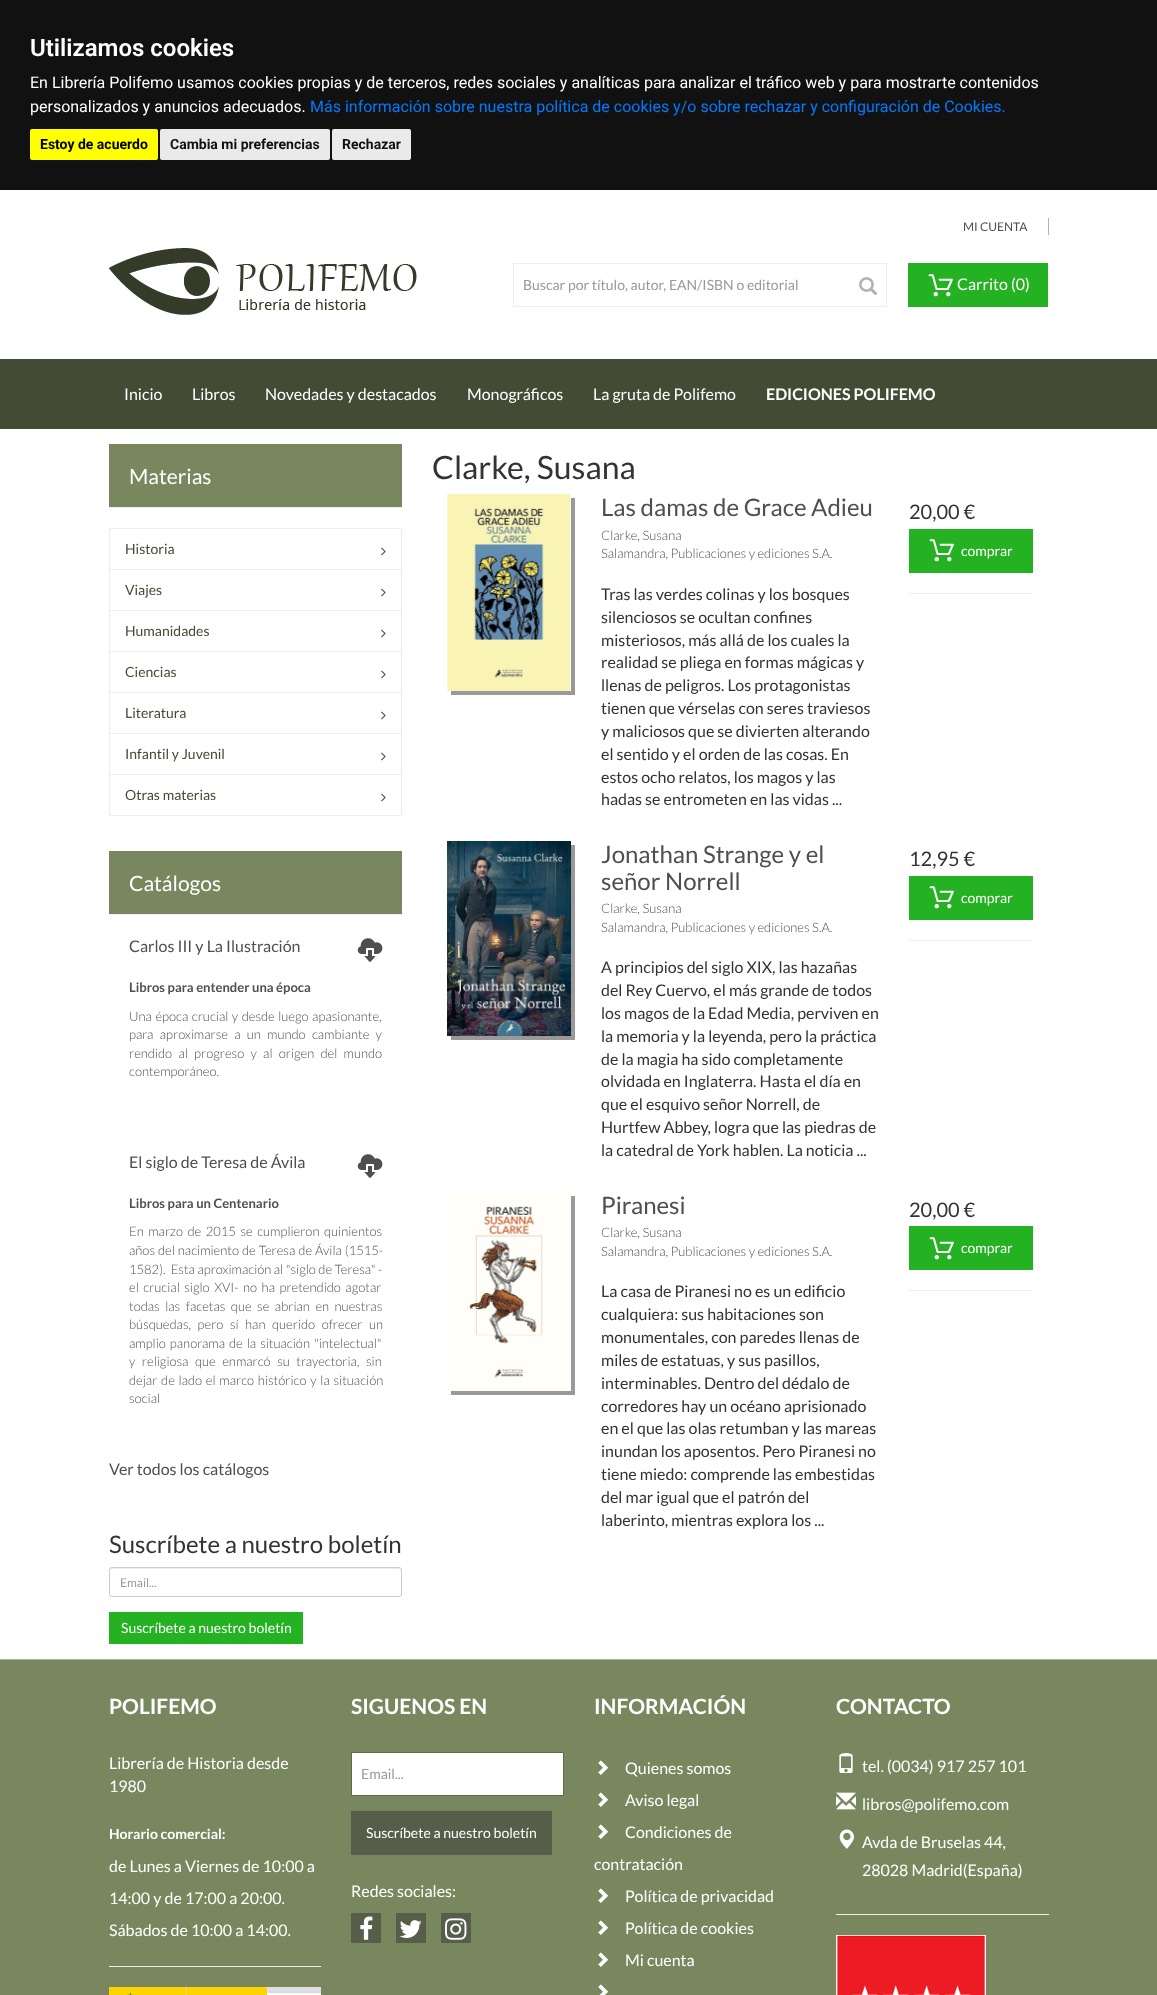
async function draw(canvas) {
	canvas.width = 1157;
	canvas.height = 1995;
	const c = canvas.getContext('2d');
	c.miterLimit = 4;
	c.fontKerning = 'normal';
	async function loadImage(src) {
		const img = new Image();
		img.src = src;
		await img.decode();
		return img;
	}

	c.fillStyle = '#fff';
	c.fillRect(0, 0, 1157, 1995);
	c.fillStyle = '#111';
	c.fillRect(0, 0, 1157, 190);
	c.font = '600 24px Roboto';
	c.fillStyle = '#fff';
	c.fillText('Utilizamos cookies', 30, 56);
	c.font = '16px Roboto';
	c.fillText('En Librería Polifemo usamos cookies propias y de terceros, redes sociales y analíticas para analizar el tráfico web y para mostrarte contenidos', 30, 88);
	c.fillText('personalizados y anuncios adecuados.', 30, 112);
	c.fillStyle = '#007bff';
	c.fillText('Más información sobre nuestra política de cookies y/o sobre rechazar y configuración de Cookies.', 310, 112);
	c.fillStyle = '#ff0';
	c.beginPath();
	c.roundRect(30, 129, 128, 31, 2);
	c.fill();
	c.font = 'bold 14px Roboto';
	c.fillStyle = '#000';
	c.fillText('Estoy de acuerdo', 40, 149);
	c.fillStyle = '#eaeaea';
	c.beginPath();
	c.roundRect(160, 129, 170, 31, 2);
	c.fill();
	c.fillStyle = '#111';
	c.fillText('Cambia mi preferencias', 170, 149);
	c.fillStyle = '#eaeaea';
	c.beginPath();
	c.roundRect(332, 129, 79, 31, 2);
	c.fill();
	c.fillStyle = '#111';
	c.fillText('Rechazar', 342, 149);
	c.fillStyle = '#b2b2b2';
	c.fillRect(1048, 218, 1, 17);
	c.font = '12px Lato';
	c.fillStyle = '#4f4f4f';
	c.fillText('MI CUENTA', 963, 231);
	c.drawImage(await loadImage('img1.png'), 109, 248, 308, 67);
	c.strokeStyle = '#eeecee';
	c.strokeRect(513.5, 263.5, 373, 43);
	c.font = '14px Lato';
	c.fillStyle = '#999';
	c.fillText('Buscar por título, autor, EAN/ISBN o editorial', 523, 290);
	c.drawImage(await loadImage('img2.png'), 859, 277, 18, 18);
	c.fillStyle = '#24b223';
	c.fillRect(908, 263, 140, 44);
	c.drawImage(await loadImage('img3.png'), 928, 274, 25, 23);
	c.font = '16px Lato';
	c.fillStyle = '#fff';
	c.fillText('Carrito (0)', 957, 290);
	c.fillStyle = '#434b34';
	c.fillRect(0, 359, 1157, 70);
	c.fillStyle = '#fff';
	for (const [text, x, y] of [
		['Inicio', 124, 400],
		['Libros', 192, 400],
		['Novedades y destacados', 265, 400],
		['Monográficos', 467, 400],
		['La gruta de Polifemo', 593, 400],
	]) {
		c.fillText(text, x, y);
	}
	c.font = 'bold 16px Lato';
	c.fillText('EDICIONES POLIFEMO', 766, 400);
	c.fillStyle = '#78875e';
	c.fillRect(109, 444, 293, 63);
	c.fillStyle = '#eeecee';
	c.fillRect(109, 507, 293, 1);
	c.font = '21px Lato';
	c.fillStyle = '#fff';
	c.fillText('Materias', 129, 484);
	c.strokeRect(109.5, 528.5, 292, 287);
	c.fillStyle = '#eeecee';
	c.fillRect(110, 569, 291, 1);
	c.font = '14px Lato';
	c.fillStyle = '#434b34';
	c.fillText('Historia', 125, 554);
	c.drawImage(await loadImage('img4.png'), 381, 547, 5, 9);
	c.fillStyle = '#eeecee';
	c.fillRect(110, 610, 291, 1);
	c.fillStyle = '#434b34';
	c.fillText('Viajes', 125, 595);
	c.drawImage(await loadImage('img4.png'), 381, 588, 5, 9);
	c.fillStyle = '#eeecee';
	c.fillRect(110, 651, 291, 1);
	c.fillStyle = '#434b34';
	c.fillText('Humanidades', 125, 636);
	c.drawImage(await loadImage('img4.png'), 381, 629, 5, 9);
	c.fillStyle = '#eeecee';
	c.fillRect(110, 692, 291, 1);
	c.fillStyle = '#434b34';
	c.fillText('Ciencias', 125, 677);
	c.drawImage(await loadImage('img4.png'), 381, 670, 5, 9);
	c.fillStyle = '#eeecee';
	c.fillRect(110, 733, 291, 1);
	c.fillStyle = '#434b34';
	c.fillText('Literatura', 125, 718);
	c.drawImage(await loadImage('img4.png'), 381, 711, 5, 9);
	c.fillStyle = '#eeecee';
	c.fillRect(110, 774, 291, 1);
	c.fillStyle = '#434b34';
	c.fillText('Infantil y Juvenil', 125, 759);
	c.drawImage(await loadImage('img4.png'), 381, 752, 5, 9);
	c.fillText('Otras materias', 125, 800);
	c.drawImage(await loadImage('img4.png'), 381, 793, 5, 9);
	c.fillStyle = '#78875e';
	c.fillRect(109, 851, 293, 63);
	c.fillStyle = '#eeecee';
	c.fillRect(109, 914, 293, 1);
	c.font = '21px Lato';
	c.fillStyle = '#fff';
	c.fillText('Catálogos', 129, 891);
	c.font = '16px Lato';
	c.fillStyle = '#4f4f4f';
	c.fillText('Carlos III y La Ilustración', 129, 952);
	c.drawImage(await loadImage('img5.png'), 357, 938, 26, 24);
	c.font = 'bold 13px Lato';
	c.fillText('Libros para entender una época', 129, 992);
	c.wordSpacing = '1px';
	c.font = '300 13px Lato';
	c.fillText('Una época crucial y desde luego apasionante,', 129, 1021);
	c.wordSpacing = '3.75px';
	c.fillText('para aproximarse a un mundo cambiante y', 129, 1039);
	c.fillText('rendido al progreso y al origen del mundo', 129, 1058);
	c.wordSpacing = '0px';
	c.fillText('contemporáneo.', 129, 1076);
	c.font = '16px Lato';
	c.fillText('El siglo de Teresa de Ávila', 129, 1168);
	c.drawImage(await loadImage('img5.png'), 357, 1154, 26, 24);
	c.font = 'bold 13px Lato';
	c.fillText('Libros para un Centenario', 129, 1208);
	c.wordSpacing = '2px';
	c.font = '300 13px Lato';
	c.fillText('En marzo de 2015 se cumplieron quinientos', 129, 1236);
	c.wordSpacing = '0.5px';
	c.fillText('años del nacimiento de Teresa de Ávila (1515-', 129, 1255);
	c.wordSpacing = '0px';
	c.fillText('1582).  Esta aproximación al "siglo de Teresa" -', 129, 1274);
	c.wordSpacing = '2px';
	c.fillText('el crucial siglo XVI- no ha pretendido agotar', 129, 1292);
	c.wordSpacing = '3px';
	c.fillText('todas las facetas que se abrían en nuestras', 129, 1311);
	c.wordSpacing = '4px';
	c.fillText('búsquedas, pero sí han querido ofrecer un', 129, 1329);
	c.wordSpacing = '1.5px';
	c.fillText('amplio panorama de la situación "intelectual"', 129, 1348);
	c.wordSpacing = '4px';
	c.fillText('y religiosa que enmarcó su trayectoria, sin', 129, 1366);
	c.wordSpacing = '1.25px';
	c.fillText('dejar de lado el marco histórico y la situación', 129, 1385);
	c.wordSpacing = '0px';
	c.fillText('social', 129, 1403);
	c.font = '16px Lato';
	c.fillText('Ver todos los catálogos', 109, 1475);
	c.font = '24px Lato';
	c.fillStyle = '#333';
	c.fillText('Suscríbete a nuestro boletín', 109, 1553);
	c.fillStyle = '#ececec';
	c.beginPath();
	c.moveTo(112, 1569);
	c.lineTo(399, 1569);
	c.bezierCurveTo(400, 1569, 401, 1570, 401, 1571);
	c.bezierCurveTo(401, 1570, 401, 1568, 399, 1568);
	c.lineTo(111, 1568);
	c.lineTo(110, 1571);
	c.bezierCurveTo(110, 1570, 111, 1569, 112, 1569);
	c.closePath();
	c.fill();
	c.beginPath();
	c.roundRect(109.5, 1567.5, 292, 29, 2.5);
	c.strokeStyle = '#ccc';
	c.stroke();
	c.font = '12px Lato';
	c.fillStyle = '#999';
	c.fillText('Email...', 120, 1587);
	c.fillStyle = '#24b223';
	c.fillRect(109, 1612, 194, 32);
	c.font = '14px Lato';
	c.fillStyle = '#fff';
	c.fillText('Suscríbete a nuestro boletín', 121, 1633);
	c.font = '32px Lato';
	c.fillStyle = '#333';
	c.fillText('Clarke, Susana', 432, 479);
	c.fillStyle = '#00000066';
	c.filter = 'blur(0.5px)';
	c.beginPath();
	c.rect(451, 498, 124, 197);
	c.fill();
	c.filter = 'none';
	c.drawImage(await loadImage('img6.png'), 447, 494, 124, 197);
	c.font = '24px Lato';
	c.fillStyle = '#4f4f4f';
	c.fillText('Las damas de Grace Adieu', 601, 516);
	c.font = '300 13px Lato';
	c.fillText('Clarke, Susana', 601, 540);
	c.fillText('Salamandra, Publicaciones y ediciones S.A.', 601, 558);
	c.font = '16px Lato';
	c.fillStyle = '#333';
	for (const [text, x, y] of [
		['Tras las verdes colinas y los bosques', 601, 600],
		['silenciosos se ocultan confines', 601, 623],
		['misteriosos, más allá de los cuales la', 601, 646],
		['realidad se pliega en formas mágicas y', 601, 668],
		['llenas de peligros. Los protagonistas', 601, 691],
		['tienen que vérselas con seres traviesos', 601, 714],
		['y maliciosos que se divierten alterando', 601, 737],
		['el sentido y el orden de las cosas. En', 601, 760],
		['estos ocho relatos, los magos y las', 601, 783],
		['hadas se entrometen en las vidas ...', 601, 805],
	]) {
		c.fillText(text, x, y);
	}
	c.font = '20px Lato';
	c.fillText('20,00 €', 909, 519);
	c.fillStyle = '#24b223';
	c.fillRect(909, 529, 124, 44);
	c.drawImage(await loadImage('img3.png'), 929, 539, 25, 23);
	c.font = '14px Lato';
	c.fillStyle = '#fff';
	c.fillText('comprar', 961, 556);
	c.fillStyle = '#eee';
	c.fillRect(909, 593, 124, 1);
	c.fillStyle = '#00000066';
	c.filter = 'blur(0.5px)';
	c.beginPath();
	c.rect(451, 845, 124, 195);
	c.fill();
	c.filter = 'none';
	c.drawImage(await loadImage('img7.png'), 447, 841, 124, 195);
	c.font = '24px Lato';
	c.fillStyle = '#4f4f4f';
	c.fillText('Jonathan Strange y el', 601, 863);
	c.fillText('señor Norrell', 601, 890);
	c.font = '300 13px Lato';
	c.fillText('Clarke, Susana', 601, 913);
	c.fillText('Salamandra, Publicaciones y ediciones S.A.', 601, 932);
	c.font = '16px Lato';
	c.fillStyle = '#333';
	for (const [text, x, y] of [
		['A principios del siglo XIX, las hazañas', 601, 973],
		['del Rey Cuervo, el más grande de todos', 601, 996],
		['los magos de la Edad Media, perviven en', 601, 1019],
		['la memoria y la leyenda, pero la práctica', 601, 1042],
		['de la magia ha sido completamente', 601, 1065],
		['olvidada en Inglaterra. Hasta el día en', 601, 1087],
		['que el esquivo señor Norrell, de', 601, 1110],
		['Hurtfew Abbey, logra que las piedras de', 601, 1133],
		['la catedral de York hablen. La noticia ...', 601, 1156],
	]) {
		c.fillText(text, x, y);
	}
	c.font = '20px Lato';
	c.fillText('12,95 €', 909, 866);
	c.fillStyle = '#24b223';
	c.fillRect(909, 876, 124, 44);
	c.drawImage(await loadImage('img3.png'), 929, 886, 25, 23);
	c.font = '14px Lato';
	c.fillStyle = '#fff';
	c.fillText('comprar', 961, 903);
	c.fillStyle = '#eee';
	c.fillRect(909, 940, 124, 1);
	c.fillStyle = '#00000066';
	c.filter = 'blur(0.5px)';
	c.beginPath();
	c.rect(451, 1196, 124, 199);
	c.fill();
	c.filter = 'none';
	c.drawImage(await loadImage('img8.png'), 447, 1192, 124, 199);
	c.font = '24px Lato';
	c.fillStyle = '#4f4f4f';
	c.fillText('Piranesi', 601, 1214);
	c.font = '300 13px Lato';
	c.fillText('Clarke, Susana', 601, 1237);
	c.fillText('Salamandra, Publicaciones y ediciones S.A.', 601, 1256);
	c.font = '16px Lato';
	c.fillStyle = '#333';
	for (const [text, x, y] of [
		['La casa de Piranesi no es un edificio', 601, 1297],
		['cualquiera: sus habitaciones son', 601, 1320],
		['monumentales, con paredes llenas de', 601, 1343],
		['miles de estatuas, y sus pasillos,', 601, 1366],
		['interminables. Dentro del dédalo de', 601, 1389],
		['corredores hay un océano aprisionado', 601, 1412],
		['en el que las olas retumban y las mareas', 601, 1434],
		['inundan los aposentos. Pero Piranesi no', 601, 1457],
		['tiene miedo: comprende las embestidas', 601, 1480],
		['del mar igual que el patrón del', 601, 1503],
		['laberinto, mientras explora los ...', 601, 1526],
	]) {
		c.fillText(text, x, y);
	}
	c.font = '20px Lato';
	c.fillText('20,00 €', 909, 1217);
	c.fillStyle = '#24b223';
	c.fillRect(909, 1226, 124, 44);
	c.drawImage(await loadImage('img3.png'), 929, 1237, 25, 23);
	c.font = '14px Lato';
	c.fillStyle = '#fff';
	c.fillText('comprar', 961, 1253);
	for (const [x, y, w, h, color] of [
		[909, 1290, 124, 1, '#eee'],
		[0, 1660, 1157, 335, '#78875e'],
		[0, 1659, 1157, 1, '#aab695'],
	]) {
		c.fillStyle = color;
		c.fillRect(x, y, w, h);
	}
	c.font = 'bold 21px Lato';
	c.fillStyle = '#fff';
	c.fillText('POLIFEMO', 109, 1714);
	c.font = '16px Lato';
	c.fillText('Librería de Historia desde', 109, 1769);
	c.fillText('1980', 109, 1792);
	c.font = 'bold 14px Lato';
	c.fillText('Horario comercial:', 109, 1839);
	c.font = '16px Lato';
	for (const [text, x, y] of [
		['de Lunes a Viernes de 10:00 a', 109, 1872],
		['14:00 y de 17:00 a 20:00.', 109, 1904],
		['Sábados de 10:00 a 14:00.', 109, 1936],
	]) {
		c.fillText(text, x, y);
	}
	c.fillStyle = '#eee';
	c.fillRect(109, 1966, 212, 1);
	c.drawImage(await loadImage('img9.png'), 109, 1987, 212, 8);
	c.font = 'bold 21px Lato';
	c.fillStyle = '#fff';
	c.fillText('SIGUENOS EN', 351, 1714);
	c.beginPath();
	c.rect(351.5, 1752.5, 212, 43);
	c.fill();
	c.strokeStyle = '#5d6949';
	c.stroke();
	c.font = '14px Lato';
	c.fillStyle = '#999';
	c.fillText('Email...', 361, 1779);
	c.fillStyle = '#565d49';
	c.fillRect(351, 1811, 201, 44);
	c.fillStyle = '#fff';
	c.fillText('Suscríbete a nuestro boletín', 366, 1838);
	c.font = '16px Lato';
	c.fillText('Redes sociales:', 351, 1897);
	c.fillStyle = '#565d49';
	c.fillRect(351, 1913, 30, 30);
	c.drawImage(await loadImage('img10.png'), 360, 1916, 13, 24);
	c.fillRect(396, 1913, 30, 30);
	c.drawImage(await loadImage('img11.png'), 399, 1920, 23, 18);
	c.fillRect(441, 1913, 30, 30);
	c.drawImage(await loadImage('img12.png'), 445, 1918, 22, 22);
	c.font = 'bold 21px Lato';
	c.fillStyle = '#fff';
	c.fillText('INFORMACIÓN', 594, 1714);
	c.drawImage(await loadImage('img13.png'), 598, 1760, 11, 15);
	c.font = '16px Lato';
	c.fillText('Quienes somos', 625, 1774);
	c.drawImage(await loadImage('img13.png'), 598, 1792, 11, 15);
	c.fillText('Aviso legal', 625, 1806);
	c.drawImage(await loadImage('img13.png'), 598, 1824, 11, 15);
	c.fillText('Condiciones de', 625, 1838);
	c.fillText('contratación', 594, 1870);
	c.drawImage(await loadImage('img13.png'), 598, 1888, 11, 15);
	c.fillText('Política de privacidad', 625, 1902);
	c.drawImage(await loadImage('img13.png'), 598, 1920, 11, 15);
	c.fillText('Política de cookies', 625, 1934);
	c.drawImage(await loadImage('img13.png'), 598, 1952, 11, 15);
	c.fillText('Mi cuenta', 625, 1966);
	c.drawImage(await loadImage('img14.png'), 598, 1984, 11, 11);
	c.font = 'bold 21px Lato';
	c.fillText('CONTACTO', 836, 1714);
	c.drawImage(await loadImage('img15.png'), 839, 1753, 14, 20);
	c.font = '16px Lato';
	c.fillText('tel. (0034) 917 257 101', 862, 1772);
	c.drawImage(await loadImage('img16.png'), 836, 1792, 20, 18);
	c.fillText('libros@polifemo.com', 862, 1810);
	c.drawImage(await loadImage('img17.png'), 839, 1829, 15, 20);
	c.fillText('Avda de Bruselas 44,', 862, 1848);
	c.fillText('28028 Madrid(España)', 862, 1876);
	c.fillStyle = '#eee';
	c.fillRect(836, 1914, 213, 1);
	c.drawImage(await loadImage('img18.png'), 836, 1935, 150, 60);
}

draw(document.querySelector('canvas'));
